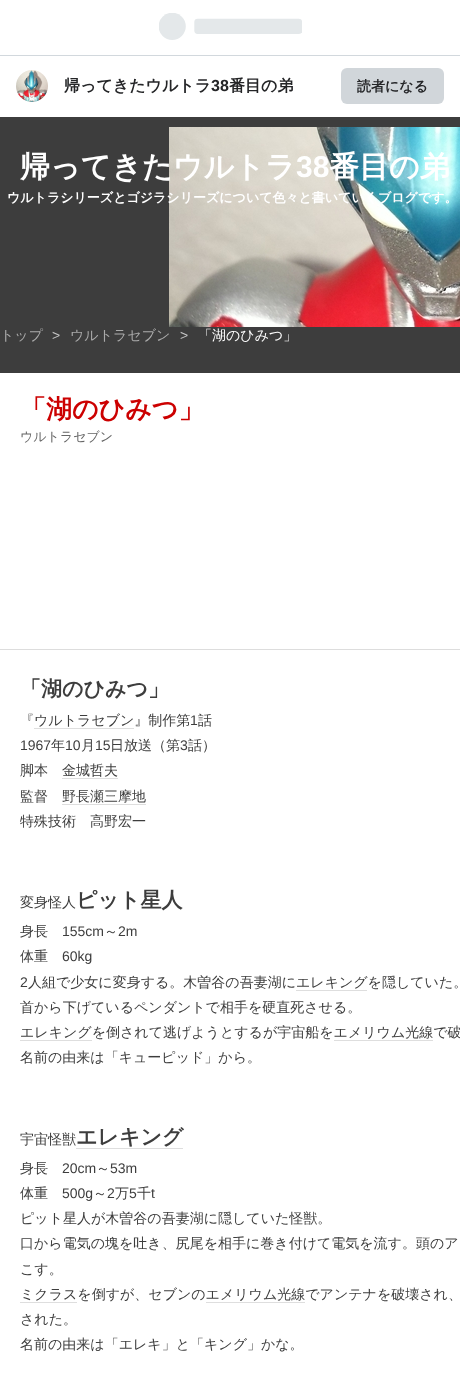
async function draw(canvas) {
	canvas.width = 460;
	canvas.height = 1382;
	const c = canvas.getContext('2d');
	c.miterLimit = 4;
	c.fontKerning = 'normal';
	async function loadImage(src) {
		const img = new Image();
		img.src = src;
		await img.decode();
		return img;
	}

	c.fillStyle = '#3d3d3d';
	c.fillRect(0, 0, 460, 1382);
	c.fillStyle = '#fff';
	c.fillRect(0, 0, 460, 55);
	c.fillStyle = '#d2d8dd';
	c.fillRect(0, 55, 460, 1);
	c.drawImage(await loadImage('img1.png'), 159, 13, 143, 27);
	c.fillStyle = '#fff';
	c.fillRect(0, 56, 460, 61);
	c.drawImage(await loadImage('img2.png'), 16, 70, 32, 32);
	c.font = 'bold 16px WenQuanYi Zen Hei';
	c.fillStyle = '#242527';
	c.fillText('帰ってきたウルトラ', 64, 91);
	c.font = 'bold 16px Liberation Sans';
	c.fillText('38', 211, 91);
	c.font = 'bold 16px WenQuanYi Zen Hei';
	c.fillText('番目の弟', 229, 91);
	c.fillStyle = '#d1d6da';
	c.beginPath();
	c.roundRect(341, 68, 103, 36, 6);
	c.fill();
	c.font = 'bold 14px WenQuanYi Zen Hei';
	c.fillStyle = '#242527';
	c.fillText('読者になる', 357, 91);
	c.drawImage(await loadImage('img3.png'), 169, 127, 291, 200);
	c.font = 'bold 30px WenQuanYi Zen Hei';
	c.fillStyle = '#fff';
	c.fillText('帰ってきたウルトラ', 20, 177);
	c.font = 'bold 30px Liberation Sans';
	c.fillText('38', 296, 177);
	c.font = 'bold 30px WenQuanYi Zen Hei';
	c.fillText('番目の弟', 329, 177);
	c.font = 'bold 13px WenQuanYi Zen Hei';
	c.fillText('ウルトラシリーズとゴジラシリーズについて色々と書いていくブログです。', 7, 202);
	c.font = '500 14px WenQuanYi Zen Hei';
	c.fillStyle = '#aaa';
	c.fillText('トップ', 0, 340);
	c.font = '14px Liberation Sans';
	c.fillStyle = '#c5c5c5';
	c.fillText('>', 52, 340);
	c.font = '500 14px WenQuanYi Zen Hei';
	c.fillStyle = '#aaa';
	c.fillText('ウルトラセブン', 70, 340);
	c.font = '14px Liberation Sans';
	c.fillStyle = '#c5c5c5';
	c.fillText('>', 180, 340);
	c.font = '500 14px WenQuanYi Zen Hei';
	c.fillStyle = '#fff';
	c.fillText('「湖のひみつ」', 198, 340);
	c.fillRect(0, 373, 460, 1009);
	c.fillStyle = '#ddd';
	c.fillRect(0, 649, 460, 1);
	c.font = 'bold 26px WenQuanYi Zen Hei';
	c.fillStyle = '#c00';
	c.fillText('「湖のひみつ」', 20, 418);
	c.font = '500 13px WenQuanYi Zen Hei';
	c.fillStyle = '#666';
	c.fillText('ウルトラセブン', 20, 441);
	c.font = 'bold 21px WenQuanYi Zen Hei';
	c.fillStyle = '#3d3d3d';
	c.fillText('「湖のひみつ」', 20, 696);
	c.font = '500 14px WenQuanYi Zen Hei';
	c.fillText('『ウルトラセブン』制作第', 20, 725);
	c.font = '14px Liberation Sans';
	c.fillText('1', 190, 725);
	c.font = '500 14px WenQuanYi Zen Hei';
	c.fillText('話', 198, 725);
	c.fillStyle = '#dedede';
	c.fillRect(34, 728, 100, 1);
	c.font = '14px Liberation Sans';
	c.fillStyle = '#3d3d3d';
	c.fillText('1967', 20, 750);
	c.font = '500 14px WenQuanYi Zen Hei';
	c.fillText('年', 51, 750);
	c.font = '14px Liberation Sans';
	c.fillText('10', 65, 750);
	c.font = '500 14px WenQuanYi Zen Hei';
	c.fillText('月', 81, 750);
	c.font = '14px Liberation Sans';
	c.fillText('15', 95, 750);
	c.font = '500 14px WenQuanYi Zen Hei';
	c.fillText('日放送（第', 110, 750);
	c.font = '14px Liberation Sans';
	c.fillText('3', 180, 750);
	c.font = '500 14px WenQuanYi Zen Hei';
	for (const [text, x, y] of [
		['話）', 188, 750],
		['脚本', 20, 775],
		['金城哲夫', 62, 775],
	]) {
		c.fillText(text, x, y);
	}
	c.fillStyle = '#dedede';
	c.fillRect(62, 778, 56, 1);
	c.fillStyle = '#3d3d3d';
	c.fillText('監督', 20, 801);
	c.fillText('野長瀬三摩地', 62, 801);
	c.fillStyle = '#dedede';
	c.fillRect(62, 804, 84, 1);
	c.fillStyle = '#3d3d3d';
	c.fillText('特殊技術　高野宏一', 20, 826);
	c.fillText('変身怪人', 20, 907);
	c.font = 'bold 21px WenQuanYi Zen Hei';
	c.fillText('ピット星人', 76, 907);
	c.font = '500 14px WenQuanYi Zen Hei';
	c.fillText('身長', 20, 936);
	c.font = '14px Liberation Sans';
	c.fillText('155cm', 62, 936);
	c.font = '500 14px WenQuanYi Zen Hei';
	c.fillText('～', 104, 936);
	c.font = '14px Liberation Sans';
	c.fillText('2m', 118, 936);
	c.font = '500 14px WenQuanYi Zen Hei';
	c.fillText('体重', 20, 961);
	c.font = '14px Liberation Sans';
	c.fillText('60kg', 62, 961);
	c.fillText('2', 20, 987);
	c.font = '500 14px WenQuanYi Zen Hei';
	c.fillText('人組で少女に変身する。木曽谷の吾妻湖にエレキングを隠していた。', 28, 987);
	c.fillStyle = '#dedede';
	c.fillRect(296, 990, 71, 1);
	c.fillStyle = '#3d3d3d';
	c.fillText('首から下げているペンダントで相手を硬直死させる。', 20, 1012);
	c.fillText('エレキングを倒されて逃げようとするが宇宙船をエメリウム光線で破', 20, 1037);
	c.fillStyle = '#dedede';
	c.fillRect(20, 1040, 72, 1);
	c.fillRect(334, 1040, 99, 1);
	c.fillStyle = '#3d3d3d';
	c.fillText('名前の由来は「キューピッド」から。', 20, 1062);
	c.fillText('宇宙怪獣', 20, 1144);
	c.font = 'bold 21px WenQuanYi Zen Hei';
	c.fillText('エレキング', 76, 1144);
	c.fillStyle = '#dedede';
	c.fillRect(76, 1148, 107, 1);
	c.font = '500 14px WenQuanYi Zen Hei';
	c.fillStyle = '#3d3d3d';
	c.fillText('身長', 20, 1173);
	c.font = '14px Liberation Sans';
	c.fillText('20cm', 62, 1173);
	c.font = '500 14px WenQuanYi Zen Hei';
	c.fillText('～', 96, 1173);
	c.font = '14px Liberation Sans';
	c.fillText('53m', 110, 1173);
	c.font = '500 14px WenQuanYi Zen Hei';
	c.fillText('体重', 20, 1198);
	c.font = '14px Liberation Sans';
	c.fillText('500g', 62, 1198);
	c.font = '500 14px WenQuanYi Zen Hei';
	c.fillText('～', 93, 1198);
	c.font = '14px Liberation Sans';
	c.fillText('2', 107, 1198);
	c.font = '500 14px WenQuanYi Zen Hei';
	c.fillText('万', 115, 1198);
	c.font = '14px Liberation Sans';
	c.fillText('5', 129, 1198);
	c.font = '500 14px WenQuanYi Zen Hei';
	c.fillText('千', 137, 1198);
	c.font = '14px Liberation Sans';
	c.fillText('t', 151, 1198);
	c.font = '500 14px WenQuanYi Zen Hei';
	for (const [text, x, y] of [
		['ピット星人が木曽谷の吾妻湖に隠していた怪獣。', 20, 1223],
		['口から電気の塊を吐き、尻尾を相手に巻き付けて電気を流す。頭のア', 20, 1248],
		['こす。', 20, 1274],
		['ミクラスを倒すが、セブンのエメリウム光線でアンテナを破壊され、', 20, 1299],
	]) {
		c.fillText(text, x, y);
	}
	c.fillStyle = '#dedede';
	c.fillRect(20, 1302, 57, 1);
	c.fillRect(206, 1302, 99, 1);
	c.fillStyle = '#3d3d3d';
	c.fillText('された。', 20, 1324);
	c.fillText('名前の由来は「エレキ」と「キング」かな。', 20, 1349);
}

draw(document.querySelector('canvas'));
